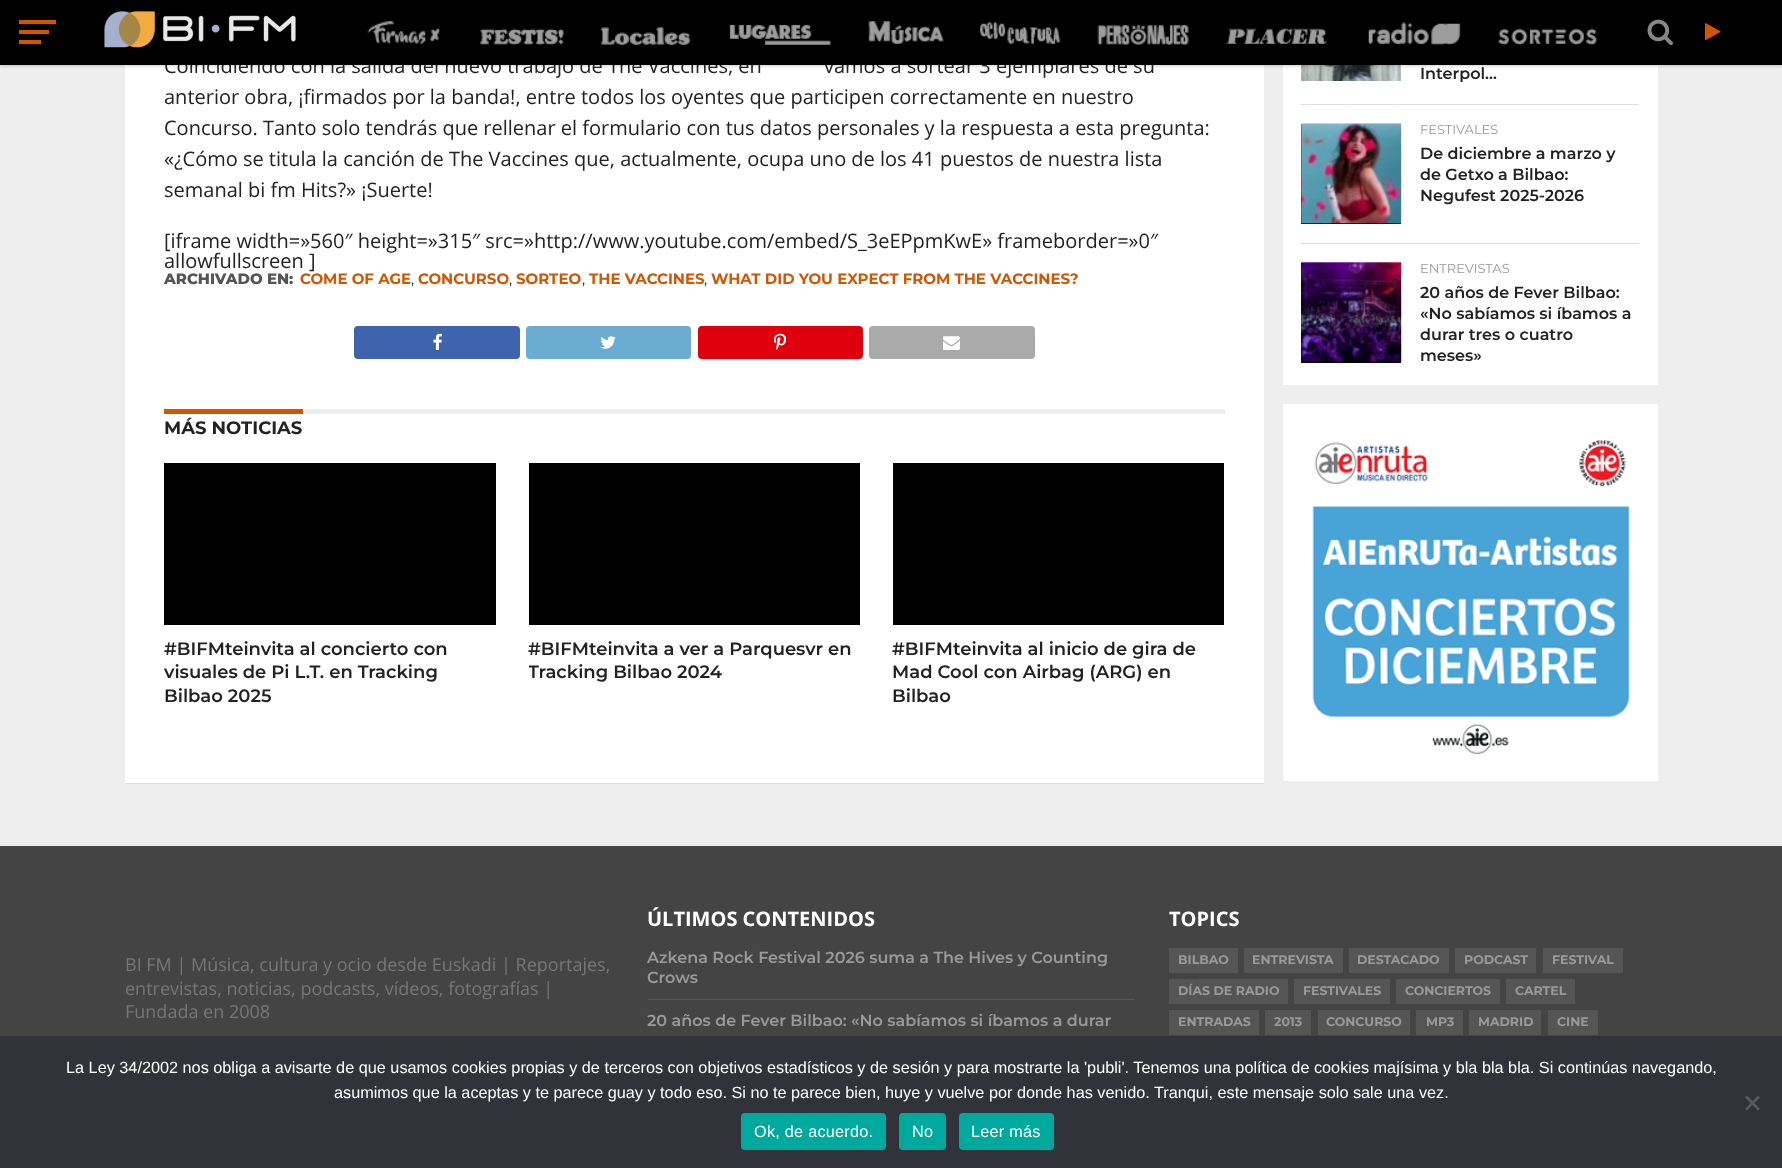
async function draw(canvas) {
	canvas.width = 1782;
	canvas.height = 1168;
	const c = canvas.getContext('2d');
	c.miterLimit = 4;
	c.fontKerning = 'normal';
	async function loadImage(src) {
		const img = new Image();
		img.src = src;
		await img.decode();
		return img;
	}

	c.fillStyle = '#eee';
	c.fillRect(0, 0, 1782, 1168);
	c.fillStyle = '#fff';
	c.fillRect(125, 65, 1139, 718);
	c.fillRect(1283, 65, 375, 320);
	c.drawImage(await loadImage('img18.png'), 1301, 65, 100, 16);
	c.fillStyle = '#0000004d';
	c.filter = 'blur(2px)';
	c.beginPath();
	c.rect(0, 3, 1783, 62);
	c.fill();
	c.filter = 'none';
	c.font = '20px Open Sans';
	c.fillStyle = '#222';
	c.fillText('Coincidiendo con la salida del nuevo trabajo de The Vaccines, en', 164, 73);
	c.fillText('vamos a sortear 3 ejemplares de su', 824, 73);
	for (const [x, y, w, h, color] of [
		[0, 0, 1782, 65, '#000'],
		[19, 20, 37, 4, '#d45500'],
		[19, 30, 30, 4, '#d45500'],
		[19, 40, 22, 4, '#d45500'],
	]) {
		c.fillStyle = color;
		c.fillRect(x, y, w, h);
	}
	c.drawImage(await loadImage('img1.png'), 104, 10, 192, 38);
	c.drawImage(await loadImage('img2.png'), 367, 21, 74, 23);
	c.drawImage(await loadImage('img3.png'), 479, 28, 85, 17);
	c.drawImage(await loadImage('img4.png'), 601, 26, 90, 19);
	c.drawImage(await loadImage('img5.png'), 729, 24, 103, 21);
	c.drawImage(await loadImage('img6.png'), 868, 21, 76, 23);
	c.drawImage(await loadImage('img7.png'), 979, 22, 82, 22);
	c.drawImage(await loadImage('img8.png'), 1097, 24, 92, 21);
	c.drawImage(await loadImage('img9.png'), 1226, 28, 101, 16);
	c.drawImage(await loadImage('img10.png'), 1368, 22, 93, 23);
	c.drawImage(await loadImage('img11.png'), 1497, 28, 100, 17);
	c.drawImage(await loadImage('img12.png'), 1647, 19, 26, 27);
	c.drawImage(await loadImage('img13.png'), 1705, 23, 16, 18);
	c.fillStyle = '#ddd';
	c.fillRect(125, 783, 1139, 1);
	c.fillStyle = '#222';
	for (const [text, x, y] of [
		['anterior obra, ¡firmados por la banda!, entre todos los oyentes que participen correctamente en nuestro', 164, 104],
		['Concurso. Tanto solo tendrás que rellenar el formulario con tus datos personales y la respuesta a esta pregunta:', 164, 135],
		['«¿Cómo se titula la canción de The Vaccines que, actualmente, ocupa uno de los 41 puestos de nuestra lista', 164, 166],
		['semanal bi fm Hits?» ¡Suerte!', 164, 197],
		['[iframe width=»560″ height=»315″ src=»http://www.youtube.com/embed/S_3eEPpmKwE» frameborder=»0″', 164, 248],
		['allowfullscreen ]', 164, 268],
	]) {
		c.fillText(text, x, y);
	}
	c.font = '800 15px Montserrat';
	c.fillStyle = '#555';
	c.fillText('ARCHIVADO EN:', 164, 284);
	c.font = 'bold 15px Montserrat';
	c.fillStyle = '#d45500';
	c.fillText('COME OF AGE', 300, 284);
	c.font = '15px Montserrat';
	c.fillStyle = '#222';
	c.fillText(',', 411, 284);
	c.font = 'bold 15px Montserrat';
	c.fillStyle = '#d45500';
	c.fillText('CONCURSO', 418, 284);
	c.font = '15px Montserrat';
	c.fillStyle = '#222';
	c.fillText(',', 509, 284);
	c.font = 'bold 15px Montserrat';
	c.fillStyle = '#d45500';
	c.fillText('SORTEO', 516, 284);
	c.font = '15px Montserrat';
	c.fillStyle = '#222';
	c.fillText(',', 582, 284);
	c.font = 'bold 15px Montserrat';
	c.fillStyle = '#d45500';
	c.fillText('THE VACCINES', 589, 284);
	c.font = '15px Montserrat';
	c.fillStyle = '#222';
	c.fillText(',', 704, 284);
	c.font = 'bold 15px Montserrat';
	c.fillStyle = '#d45500';
	c.fillText('WHAT DID YOU EXPECT FROM THE VACCINES?', 711, 284);
	c.fillStyle = '#3e64ad';
	c.beginPath();
	c.roundRect(354, 326, 166, 33, 4);
	c.fill();
	c.drawImage(await loadImage('img14.png'), 433, 333, 9, 17);
	c.fillStyle = '#6aadd1';
	c.beginPath();
	c.roundRect(526, 326, 165, 33, 4);
	c.fill();
	c.drawImage(await loadImage('img15.png'), 600, 336, 16, 13);
	c.fillStyle = '#de010d';
	c.beginPath();
	c.roundRect(698, 326, 165, 33, 4);
	c.fill();
	c.drawImage(await loadImage('img16.png'), 774, 333, 12, 17);
	c.fillStyle = '#aaa';
	c.beginPath();
	c.roundRect(869, 326, 166, 33, 4);
	c.fill();
	c.drawImage(await loadImage('img17.png'), 943, 336, 17, 14);
	c.fillStyle = '#eee';
	c.fillRect(303, 409, 922, 5);
	c.fillStyle = '#d45500';
	c.fillRect(164, 409, 139, 5);
	c.font = 'bold 18px Montserrat';
	c.fillStyle = '#222';
	c.fillText('MÁS NOTICIAS', 164, 434);
	c.fillStyle = '#000';
	c.fillRect(164, 463, 332, 162);
	c.font = '600 18px Montserrat';
	c.fillStyle = '#222';
	for (const [text, x, y] of [
		['#BIFMteinvita al concierto con', 164, 655],
		['visuales de Pi L.T. en Tracking', 164, 678],
		['Bilbao 2025', 164, 702],
	]) {
		c.fillText(text, x, y);
	}
	c.fillStyle = '#000';
	c.fillRect(529, 463, 331, 162);
	c.fillStyle = '#222';
	c.fillText('#BIFMteinvita a ver a Parquesvr en', 528, 655);
	c.save();
	c.beginPath();
	c.rect(529, 463, 331, 221);
	c.clip();
	c.fillText('Tracking Bilbao 2024', 528, 678);
	c.restore();
	c.fillStyle = '#000';
	c.fillRect(893, 463, 331, 162);
	c.fillStyle = '#222';
	for (const [text, x, y] of [
		['#BIFMteinvita al inicio de gira de', 892, 655],
		['Mad Cool con Airbag (ARG) en', 892, 678],
		['Bilbao', 892, 702],
	]) {
		c.fillText(text, x, y);
	}
	c.font = '600 16px Montserrat';
	c.fillText('Interpol…', 1420, 79);
	c.fillStyle = '#ddd';
	c.fillRect(1301, 104, 338, 1);
	c.fillStyle = '#000';
	c.fillRect(1301, 124, 100, 100);
	c.drawImage(await loadImage('img19.png'), 1301, 123, 101, 101);
	c.font = '13px Montserrat';
	c.fillStyle = '#999';
	c.fillText('FESTIVALES', 1420, 134);
	c.font = '600 16px Montserrat';
	c.fillStyle = '#222';
	for (const [text, x, y] of [
		['De diciembre a marzo y', 1420, 159],
		['de Getxo a Bilbao:', 1420, 180],
		['Negufest 2025-2026', 1420, 201],
	]) {
		c.fillText(text, x, y);
	}
	c.fillStyle = '#ddd';
	c.fillRect(1301, 243, 338, 1);
	c.fillStyle = '#000';
	c.fillRect(1301, 263, 100, 100);
	c.drawImage(await loadImage('img20.png'), 1301, 261, 101, 102);
	c.font = '13px Montserrat';
	c.fillStyle = '#999';
	c.fillText('ENTREVISTAS', 1420, 273);
	c.font = '600 16px Montserrat';
	c.fillStyle = '#222';
	for (const [text, x, y] of [
		['20 años de Fever Bilbao:', 1420, 298],
		['«No sabíamos si íbamos a', 1420, 319],
		['durar tres o cuatro', 1420, 340],
		['meses»', 1420, 361],
	]) {
		c.fillText(text, x, y);
	}
	c.fillStyle = '#fff';
	c.fillRect(1283, 404, 375, 377);
	c.drawImage(await loadImage('img21.png'), 1312, 440, 318, 314);
	c.fillStyle = '#444';
	c.fillRect(0, 846, 1782, 190);
	c.font = '18px Open Sans';
	c.fillStyle = '#777';
	for (const [text, x, y] of [
		['BI FM | Música, cultura y ocio desde Euskadi | Reportajes,', 125, 971],
		['entrevistas, noticias, podcasts, vídeos, fotografías |', 125, 995],
		['Fundada en 2008', 125, 1018],
	]) {
		c.fillText(text, x, y);
	}
	c.font = 'bold 20px Open Sans';
	c.fillStyle = '#fff';
	c.fillText('ÚLTIMOS CONTENIDOS', 647, 926);
	c.font = '600 16px Montserrat';
	c.fillStyle = '#999';
	c.fillText('Azkena Rock Festival 2026 suma a The Hives y Counting', 647, 963);
	c.fillText('Crows', 647, 983);
	c.fillStyle = '#555';
	c.fillRect(648, 999, 487, 1);
	c.fillStyle = '#999';
	c.fillText('20 años de Fever Bilbao: «No sabíamos si íbamos a durar', 647, 1026);
	c.font = 'bold 20px Open Sans';
	c.fillStyle = '#fff';
	c.fillText('TOPICS', 1169, 926);
	c.fillStyle = '#555';
	c.fillRect(1169, 948, 69, 25);
	c.font = 'bold 12.5px Montserrat';
	c.fillStyle = '#999';
	c.fillText('BILBAO', 1178, 964);
	c.fillStyle = '#555';
	c.fillRect(1244, 948, 99, 25);
	c.fillStyle = '#999';
	c.fillText('ENTREVISTA', 1252, 964);
	c.fillStyle = '#555';
	c.fillRect(1349, 948, 100, 25);
	c.fillStyle = '#999';
	c.fillText('DESTACADO', 1357, 964);
	c.fillStyle = '#555';
	c.fillRect(1455, 948, 81, 25);
	c.fillStyle = '#999';
	c.fillText('PODCAST', 1464, 964);
	c.fillStyle = '#555';
	c.fillRect(1543, 948, 80, 25);
	c.fillStyle = '#999';
	c.fillText('FESTIVAL', 1552, 964);
	c.fillStyle = '#555';
	c.fillRect(1169, 979, 119, 25);
	c.fillStyle = '#999';
	c.fillText('DÍAS DE RADIO', 1178, 995);
	c.fillStyle = '#555';
	c.fillRect(1294, 979, 96, 25);
	c.fillStyle = '#999';
	c.fillText('FESTIVALES', 1303, 995);
	c.fillStyle = '#555';
	c.fillRect(1396, 979, 104, 25);
	c.fillStyle = '#999';
	c.fillText('CONCIERTOS', 1405, 995);
	c.fillStyle = '#555';
	c.fillRect(1506, 979, 69, 25);
	c.fillStyle = '#999';
	c.fillText('CARTEL', 1515, 995);
	c.fillStyle = '#555';
	c.fillRect(1169, 1010, 90, 25);
	c.fillStyle = '#999';
	c.fillText('ENTRADAS', 1178, 1026);
	c.fillStyle = '#555';
	c.fillRect(1265, 1010, 46, 25);
	c.fillStyle = '#999';
	c.fillText('2013', 1274, 1026);
	c.fillStyle = '#555';
	c.fillRect(1318, 1010, 92, 25);
	c.fillStyle = '#999';
	c.fillText('CONCURSO', 1326, 1026);
	c.fillStyle = '#555';
	c.fillRect(1416, 1010, 47, 25);
	c.fillStyle = '#999';
	c.fillText('MP3', 1426, 1026);
	c.fillStyle = '#555';
	c.fillRect(1469, 1010, 72, 25);
	c.fillStyle = '#999';
	c.fillText('MADRID', 1478, 1026);
	c.fillStyle = '#555';
	c.fillRect(1548, 1010, 50, 25);
	c.fillStyle = '#999';
	c.fillText('CINE', 1557, 1026);
	c.fillStyle = '#32323a';
	c.fillRect(0, 1036, 1782, 132);
	c.font = '16.25px Liberation Sans';
	c.fillStyle = '#fff';
	c.fillText('La Ley 34/2002 nos obliga a avisarte de que usamos cookies propias y de terceros con objetivos estadísticos y de sesión y para mostrarte la \'publi\'. Tenemos una política de cookies majísima y bla bla bla. Si continúas navegando,', 66, 1073);
	c.fillText('asumimos que la aceptas y te parece guay y todo eso. Si no te parece bien, huye y vuelve por donde has venido. Tranqui, este mensaje solo sale una vez.', 334, 1098);
	c.fillStyle = '#59595d';
	c.beginPath();
	c.moveTo(1758, 1095.5);
	c.lineTo(1760, 1097.5);
	c.lineTo(1747, 1110.5);
	c.lineTo(1745, 1109);
	c.closePath();
	c.fill();
	c.beginPath();
	c.moveTo(1745, 1097.5);
	c.lineTo(1747, 1095.5);
	c.lineTo(1760, 1109);
	c.lineTo(1758, 1110.5);
	c.closePath();
	c.fill();
	c.fillStyle = '#00a99d';
	c.beginPath();
	c.roundRect(741, 1113, 145, 37, 4);
	c.fill();
	c.letterSpacing = '0.25px';
	c.fillStyle = '#fff';
	c.fillText('Ok, de acuerdo.', 754, 1137);
	c.fillStyle = '#00a99d';
	c.beginPath();
	c.roundRect(899, 1113, 47, 37, 4);
	c.fill();
	c.fillStyle = '#fff';
	c.fillText('No', 912, 1137);
	c.fillStyle = '#00a99d';
	c.beginPath();
	c.roundRect(959, 1113, 95, 37, 4);
	c.fill();
	c.fillStyle = '#fff';
	c.fillText('Leer más', 971, 1137);
}

draw(document.querySelector('canvas'));
